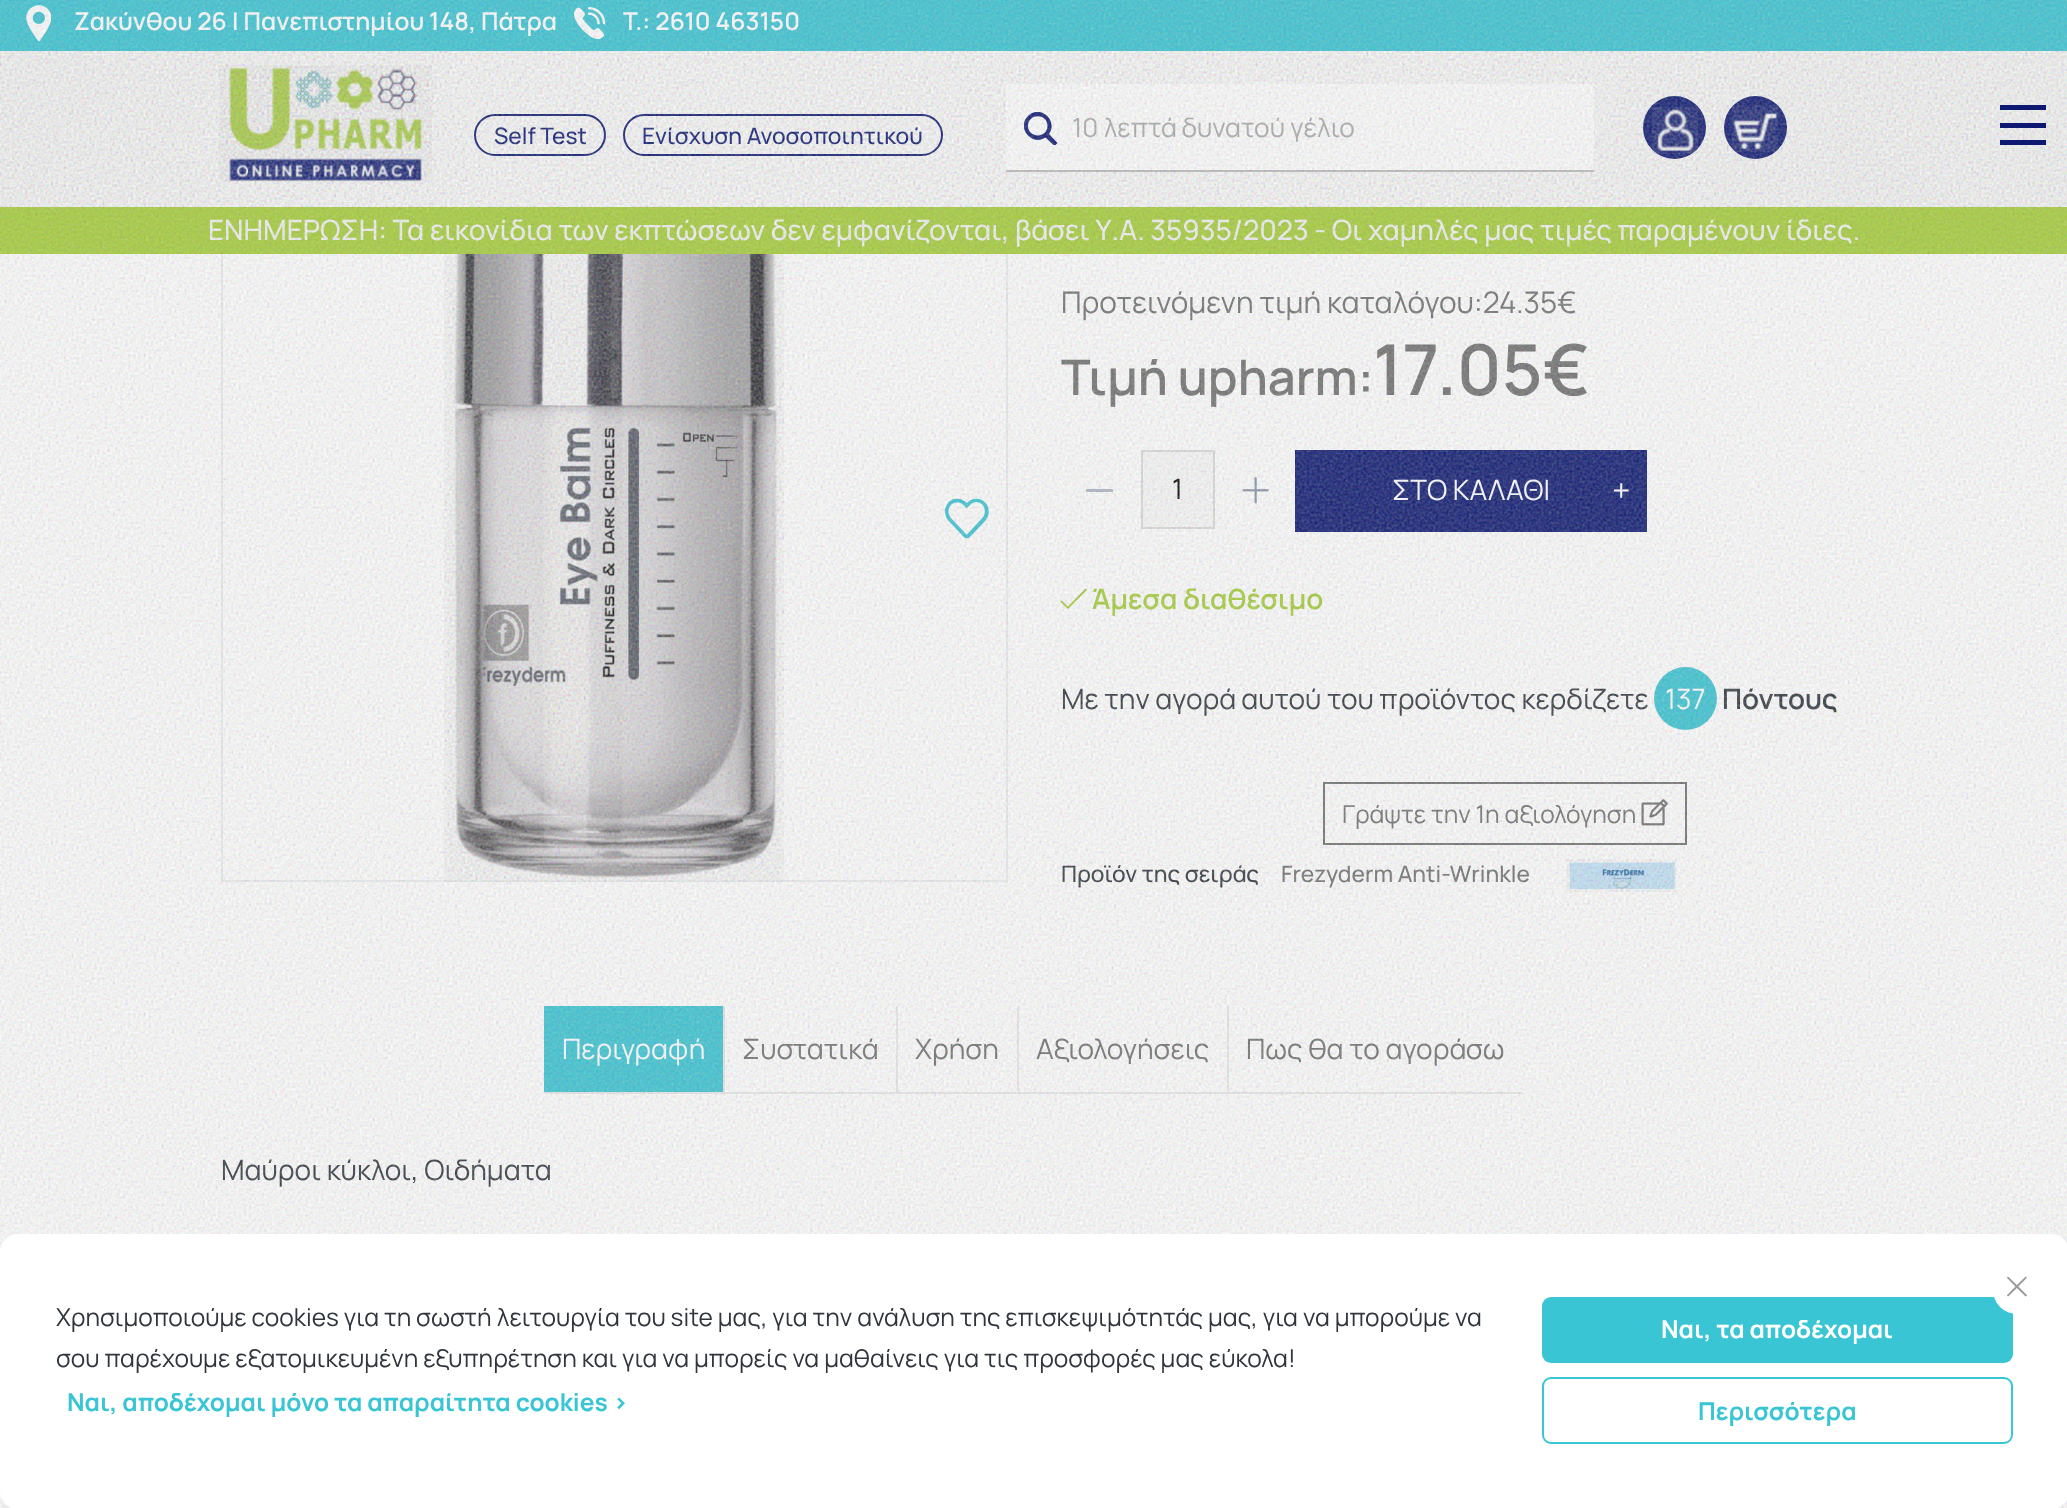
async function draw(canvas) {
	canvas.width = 2067;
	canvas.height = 1508;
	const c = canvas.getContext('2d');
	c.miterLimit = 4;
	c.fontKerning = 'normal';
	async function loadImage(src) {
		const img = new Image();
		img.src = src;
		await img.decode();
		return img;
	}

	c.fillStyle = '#fff';
	c.fillRect(0, 0, 2067, 1508);
	c.strokeStyle = '#eceff1';
	c.lineWidth = 2;
	c.strokeRect(222, 96, 785, 785);
	c.drawImage(await loadImage('img2.png'), 0, 51, 2067, 156);
	c.fillStyle = '#39c5d4';
	c.fillRect(0, 0, 2067, 51);
	c.drawImage(await loadImage('img3.png'), 26, 5, 25, 37);
	c.font = '200 24.5px "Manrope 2"';
	c.fillStyle = '#fff';
	c.fillText('Ζακύνθου 26 | Πανεπιστημίου 148, Πάτρα', 74, 30);
	c.drawImage(await loadImage('img4.png'), 574, 7, 32, 32);
	c.fillText('T.: 2610 463150', 623, 30);
	c.drawImage(await loadImage('img5.png'), 219, 65, 213, 117);
	c.beginPath();
	c.roundRect(475, 115, 130, 40, 20);
	c.strokeStyle = '#0c1871';
	c.stroke();
	c.font = '200 22.75px "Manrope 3"';
	c.fillStyle = '#0c1871';
	c.fillText('Self Test', 494, 144);
	c.beginPath();
	c.roundRect(624, 115, 318, 40, 20);
	c.stroke();
	c.fillText('Ενίσχυση Ανοσοποιητικού', 642, 144);
	c.fillStyle = '#fff';
	c.fillRect(1006, 84, 588, 86);
	c.save();
	c.beginPath();
	c.rect(1024, 112, 34, 33);
	c.clip();
	c.fillStyle = '#0c1871';
	c.beginPath();
	c.moveTo(1057.5, 143);
	c.lineTo(1049, 134);
	c.bezierCurveTo(1058.5, 120.5, 1040, 104, 1028, 116);
	c.bezierCurveTo(1016, 128, 1032, 146.5, 1045.5, 137.5);
	c.lineTo(1054.5, 146);
	c.closePath();
	c.moveTo(1028, 126);
	c.bezierCurveTo(1028, 113, 1047.5, 113, 1047.5, 126);
	c.bezierCurveTo(1047.5, 138.5, 1028, 138.5, 1028, 126);
	c.closePath();
	c.fill();
	c.restore();
	c.font = '200 26.25px Manrope';
	c.fillStyle = '#aaa';
	c.fillText('10 λεπτά δυνατού γέλιο', 1072, 137);
	c.fillStyle = '#bcbcbc';
	c.fillRect(1006, 170, 588, 2);
	c.fillStyle = '#0c1871';
	c.beginPath();
	c.arc(1674.5, 127.5, 31.5, 0, 2 * Math.PI);
	c.fill();
	c.drawImage(await loadImage('img6.png'), 1652, 107, 46, 47);
	c.beginPath();
	c.arc(1755.5, 127.5, 31.5, 0, 2 * Math.PI);
	c.fill();
	c.drawImage(await loadImage('img7.png'), 1732, 105, 46, 47);
	c.fillStyle = '#a6ce39';
	c.fillRect(0, 207, 2067, 47);
	c.font = '200 28px "Manrope 3"';
	c.fillStyle = '#f2f2f2';
	c.fillText('ΕΝΗΜΕΡΩΣΗ: Τα εικονίδια των εκπτώσεων δεν εμφανίζονται, βάσει Υ.Α. 35935/2023 - Οι χαμηλές μας τιμές παραμένουν ίδιες.', 208, 240);
	c.drawImage(await loadImage('img8.png'), 444, 254, 340, 628);
	c.drawImage(await loadImage('img9.png'), 944, 498, 45, 41);
	c.font = '200 29.75px Manrope';
	c.fillStyle = '#707070';
	c.fillText('Προτεινόμενη τιμή καταλόγου:24.35€', 1061, 313);
	c.font = '200 49px "Manrope 2"';
	c.fillText('Τιμή upharm:', 1061, 395);
	c.font = '200 70px "Manrope 2"';
	c.fillText('17.05€', 1373, 395);
	c.fillStyle = '#afb8c5';
	c.fillRect(1086, 489, 27, 3);
	c.fillStyle = '#fafafa';
	c.beginPath();
	c.rect(1142, 451, 72, 77);
	c.fill();
	c.strokeStyle = '#dbdbdb';
	c.stroke();
	c.font = '200 28px Manrope';
	c.fillStyle = '#000';
	c.fillText('1', 1172, 499);
	c.drawImage(await loadImage('img10.png'), 1242, 477, 27, 27);
	c.fillStyle = '#0c1871';
	c.fillRect(1295, 450, 352, 82);
	c.fillStyle = '#fff';
	c.fillText('ΣΤΟ ΚΑΛΑΘΙ', 1392, 500);
	c.font = '200 32px Manrope';
	c.fillText('+', 1612, 502);
	c.drawImage(await loadImage('img11.png'), 1060, 588, 27, 21);
	c.font = '200 28px "Manrope 2"';
	c.fillStyle = '#a6ce39';
	c.fillText('Άμεσα διαθέσιμο', 1092, 609);
	c.font = '200 28px Manrope';
	c.fillStyle = '#2f353d';
	c.fillText('Με την αγορά αυτού του προϊόντος κερδίζετε', 1061, 709);
	c.fillStyle = '#39c5d4';
	c.beginPath();
	c.arc(1685.5, 698.5, 31.5, 0, 2 * Math.PI);
	c.fill();
	c.fillStyle = '#fff';
	c.fillText('137', 1665, 709);
	c.font = '200 28px "Manrope 2"';
	c.fillStyle = '#2f353d';
	c.fillText('Πόντους', 1722, 709);
	c.strokeStyle = '#707070';
	c.strokeRect(1324, 783, 362, 61);
	c.font = '200 24.5px Manrope';
	c.fillStyle = '#707070';
	c.fillText('Γράψτε την 1η αξιολόγηση', 1342, 823);
	c.drawImage(await loadImage('img12.png'), 1641, 799, 27, 27);
	c.font = '200 22.75px "Manrope 3"';
	c.fillStyle = '#2f353d';
	c.fillText('Προϊόν της σειράς', 1061, 882);
	c.fillStyle = '#707070';
	c.fillText('Frezyderm Anti-Wrinkle', 1281, 882);
	c.drawImage(await loadImage('img13.png'), 1566, 859, 110, 33);
	for (const [x, y, w, h, color] of [
		[544, 1006, 179, 86, '#39c5d4'],
		[723, 1006, 2, 88, '#eaeaea'],
		[544, 1092, 181, 2, '#eaeaea'],
	]) {
		c.fillStyle = color;
		c.fillRect(x, y, w, h);
	}
	c.font = '200 28px Manrope';
	c.fillStyle = '#fff';
	c.fillText('Περιγραφή', 562, 1059);
	c.fillStyle = '#eaeaea';
	c.fillRect(896, 1006, 2, 88);
	c.fillRect(725, 1092, 173, 2);
	c.fillStyle = '#707070';
	c.fillText('Συστατικά', 742, 1059);
	c.fillStyle = '#eaeaea';
	c.fillRect(1017, 1006, 2, 88);
	c.fillRect(898, 1092, 121, 2);
	c.fillStyle = '#707070';
	c.fillText('Χρήση', 915, 1059);
	c.fillStyle = '#eaeaea';
	c.fillRect(1227, 1006, 2, 88);
	c.fillRect(1019, 1092, 210, 2);
	c.fillStyle = '#707070';
	c.fillText('Αξιολογήσεις', 1036, 1059);
	c.fillStyle = '#eaeaea';
	c.beginPath();
	c.moveTo(1524, 1094);
	c.lineTo(1228, 1094);
	c.lineTo(1228, 1092);
	c.lineTo(1522, 1092);
	c.closePath();
	c.fill();
	c.fillStyle = '#707070';
	c.fillText('Πως θα το αγοράσω', 1246, 1059);
	c.fillStyle = '#2f353d';
	c.fillText('Μαύροι κύκλοι, Οιδήματα', 221, 1180);
	c.drawImage(await loadImage('img1.png'), 0, 0, 2067, 1508);
	c.drawImage(await loadImage('img14.png'), 0, 0, 2067, 1508);
	for (const [x, y, w, h, color] of [
		[2000, 105, 46, 5, '#0c1871'],
		[2000, 123, 46, 5, '#0c1871'],
		[2000, 140, 46, 5, '#0c1871'],
	]) {
		c.fillStyle = color;
		c.fillRect(x, y, w, h);
	}
	c.fillStyle = '#fff';
	c.beginPath();
	c.roundRect(0, 1234, 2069, 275, 18);
	c.fill();
	c.fillStyle = '#39c5d4';
	c.beginPath();
	c.roundRect(1542, 1297, 471, 66, 9);
	c.fill();
	c.fillStyle = '#fff';
	c.beginPath();
	c.roundRect(1993, 1262, 48, 52, 24);
	c.fill();
	c.drawImage(await loadImage('img15.png'), 2007, 1276, 20, 21);
	c.font = '200 24.5px Manrope';
	c.fillStyle = '#2f353d';
	c.fillText('Χρησιμοποιούμε cookies για τη σωστή λειτουργία του site μας, για την ανάλυση της επισκεψιμότητάς μας, για να μπορούμε να', 56, 1326);
	c.fillText('σου παρέχουμε εξατομικευμένη εξυπηρέτηση και για να μπορείς να μαθαίνεις για τις προσφορές μας εύκολα!', 56, 1367);
	c.font = '200 24.5px "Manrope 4"';
	c.fillStyle = '#39c5d4';
	c.fillText('Ναι, αποδέχομαι μόνο τα απαραίτητα cookies >', 67, 1411);
	c.fillStyle = '#fff';
	c.fillText('Ναι, τα αποδέχομαι', 1661, 1338);
	c.beginPath();
	c.roundRect(1543, 1378, 469, 65, 8);
	c.strokeStyle = '#39c5d4';
	c.stroke();
	c.fillStyle = '#39c5d4';
	c.fillText('Περισσότερα', 1698, 1420);
}

draw(document.querySelector('canvas'));
